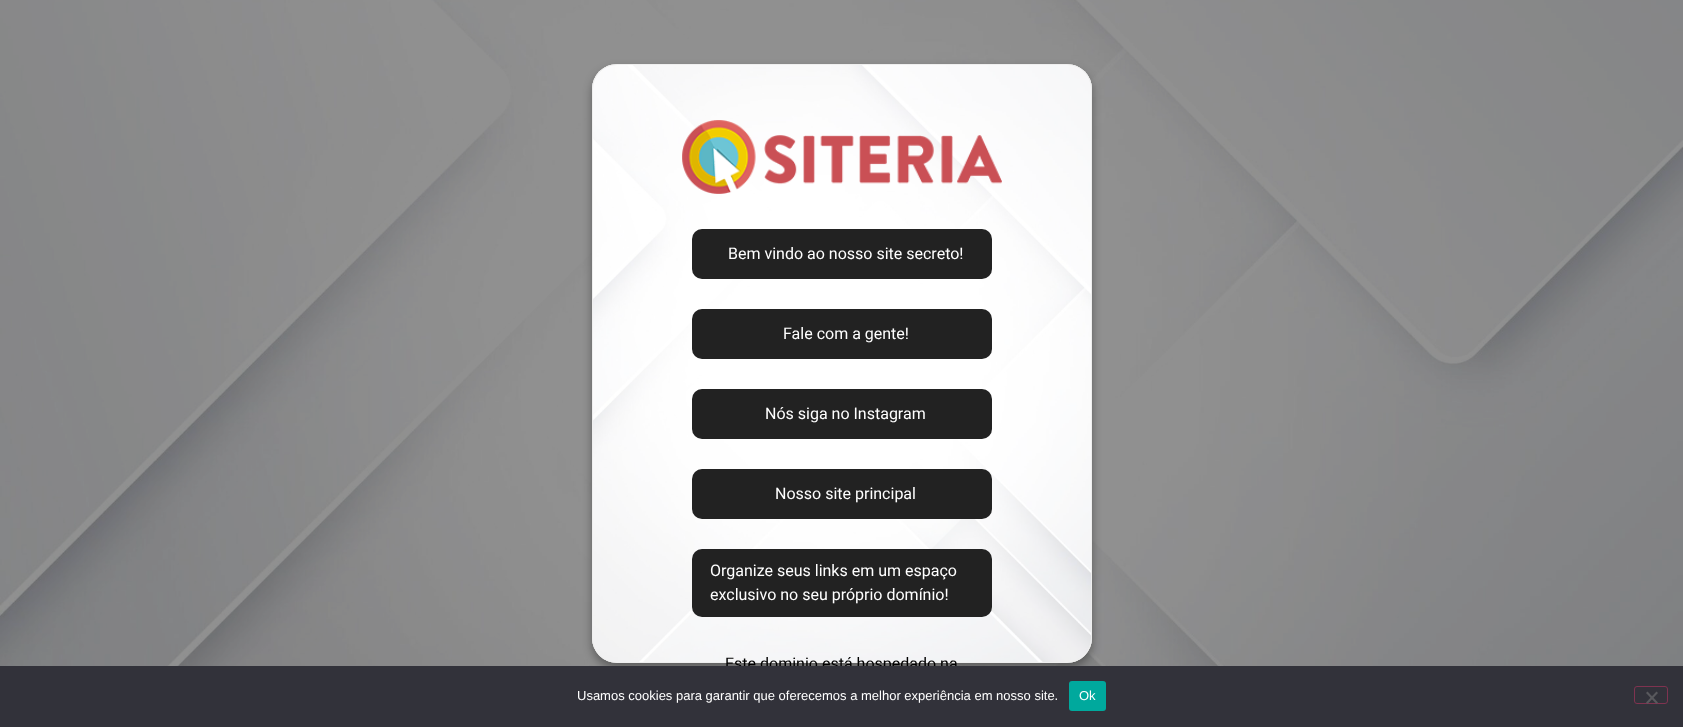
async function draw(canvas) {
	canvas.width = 1683;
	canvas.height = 727;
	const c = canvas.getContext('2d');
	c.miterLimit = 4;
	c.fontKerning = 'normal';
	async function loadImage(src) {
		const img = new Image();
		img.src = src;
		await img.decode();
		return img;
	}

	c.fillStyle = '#fff';
	c.fillRect(0, 0, 1683, 727);
	c.drawImage(await loadImage('img1.png'), 0, 0, 1683, 666);
	c.fillStyle = '#00000059';
	c.filter = 'blur(5px)';
	c.beginPath();
	c.roundRect(592, 69, 500, 599, 25);
	c.fill();
	c.filter = 'none';
	c.drawImage(await loadImage('img2.png'), 592, 65, 500, 597);
	c.beginPath();
	c.roundRect(592.5, 64.5, 499, 598, 24.5);
	c.strokeStyle = '#e9e9e9';
	c.stroke();
	c.fillStyle = '#ffffff80';
	c.beginPath();
	c.roundRect(592, 64, 500, 599, 25);
	c.fill();
	c.beginPath();
	c.roundRect(592.5, 64.5, 499, 598, 24.5);
	c.strokeStyle = '#e9e9e980';
	c.stroke();
	c.drawImage(await loadImage('img3.png'), 682, 120, 320, 74);
	c.fillStyle = '#222';
	c.beginPath();
	c.roundRect(692, 229, 300, 50, 10);
	c.fill();
	c.font = '16px Roboto';
	c.fillStyle = '#fff';
	c.fillText('Bem vindo ao nosso site secreto!', 728, 259);
	c.fillStyle = '#222';
	c.beginPath();
	c.roundRect(692, 309, 300, 50, 10);
	c.fill();
	c.fillStyle = '#fff';
	c.fillText('Fale com a gente!', 783, 339);
	c.fillStyle = '#222';
	c.beginPath();
	c.roundRect(692, 389, 300, 50, 10);
	c.fill();
	c.fillStyle = '#fff';
	c.fillText('Nós siga no Instagram', 765, 419);
	c.fillStyle = '#222';
	c.beginPath();
	c.roundRect(692, 469, 300, 50, 10);
	c.fill();
	c.fillStyle = '#fff';
	c.fillText('Nosso site principal', 775, 499);
	c.fillStyle = '#222';
	c.beginPath();
	c.roundRect(692, 549, 300, 68, 10);
	c.fill();
	c.fillStyle = '#fff';
	c.fillText('Organize seus links em um espaço', 710, 576);
	c.fillText('exclusivo no seu próprio domínio!', 710, 600);
	c.fillStyle = '#000';
	c.fillText('Este dominio está hospedado na', 725, 669);
	c.fillStyle = '#32323a';
	c.fillRect(0, 666, 1683, 61);
	c.font = '13px Liberation Sans';
	c.fillStyle = '#fff';
	c.fillText('Usamos cookies para garantir que oferecemos a melhor experiência em nosso site.', 577, 700);
	c.fillStyle = '#00a99d';
	c.beginPath();
	c.roundRect(1069, 681, 37, 30, 3);
	c.fill();
	c.fillStyle = '#fff';
	c.fillText('Ok', 1079, 700);
	c.beginPath();
	c.roundRect(1634.5, 686.5, 33, 17, 2.5);
	c.strokeStyle = '#7f3350';
	c.stroke();
	c.fillStyle = '#59595d';
	c.beginPath();
	c.moveTo(1656.5, 691.5);
	c.lineTo(1658, 693);
	c.lineTo(1647.5, 704);
	c.lineTo(1646, 702.5);
	c.closePath();
	c.fill();
	c.beginPath();
	c.moveTo(1646, 693);
	c.lineTo(1647.5, 691.5);
	c.lineTo(1658, 702.5);
	c.lineTo(1656.5, 704);
	c.closePath();
	c.fill();
}

draw(document.querySelector('canvas'));
